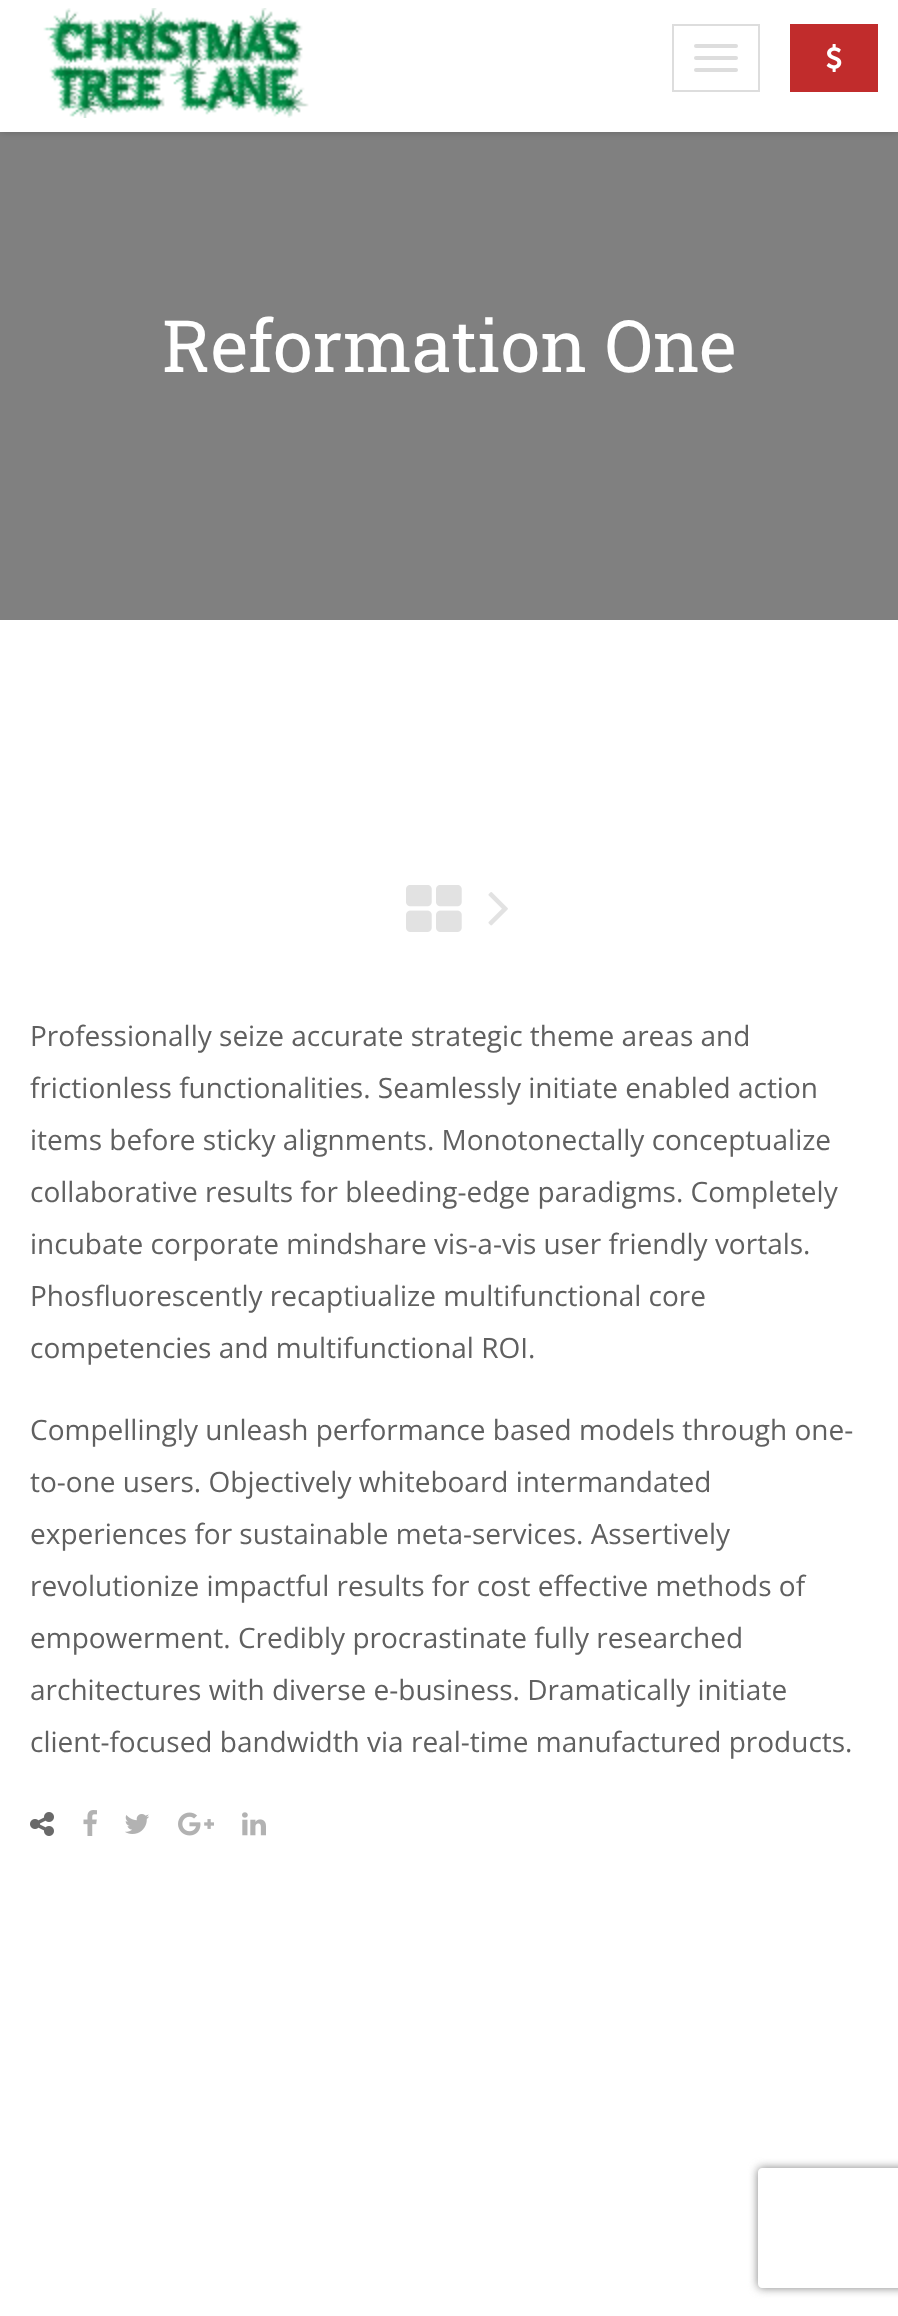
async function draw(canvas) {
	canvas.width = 898;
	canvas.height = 2316;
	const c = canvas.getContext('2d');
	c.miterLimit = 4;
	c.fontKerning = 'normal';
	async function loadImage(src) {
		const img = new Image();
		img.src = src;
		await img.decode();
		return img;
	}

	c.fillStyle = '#fff';
	c.fillRect(0, 0, 898, 2316);
	c.fillStyle = '#808080';
	c.fillRect(0, 132, 898, 488);
	c.fillStyle = '#00000052';
	c.filter = 'blur(5px)';
	c.beginPath();
	c.rect(0, -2, 898, 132);
	c.fill();
	c.filter = 'none';
	c.fillStyle = '#fff';
	c.fillRect(0, 0, 898, 132);
	c.drawImage(await loadImage('img1.png'), 43, 8, 266, 110);
	c.strokeStyle = '#ddd';
	c.lineWidth = 2;
	c.strokeRect(673, 25, 86, 66);
	c.fillStyle = '#ddd';
	c.beginPath();
	c.roundRect(694, 44, 44, 4, 2);
	c.fill();
	c.beginPath();
	c.roundRect(694, 56, 44, 4, 2);
	c.fill();
	c.beginPath();
	c.roundRect(694, 68, 44, 4, 2);
	c.fill();
	c.fillStyle = '#c12c2c';
	c.fillRect(790, 24, 88, 68);
	c.drawImage(await loadImage('img2.png'), 826, 44, 16, 28);
	c.font = '72px Roboto Slab';
	c.fillStyle = '#fff';
	c.fillText('Reformation One', 162, 372);
	c.drawImage(await loadImage('img3.png'), 406, 885, 56, 47);
	c.drawImage(await loadImage('img4.png'), 488, 892, 20, 34);
	c.font = '28px Open Sans';
	c.fillStyle = '#606060';
	for (const [text, x, y] of [
		['Professionally seize accurate strategic theme areas and', 30, 1046],
		['frictionless functionalities. Seamlessly initiate enabled action', 30, 1098],
		['items before sticky alignments. Monotonectally conceptualize', 30, 1150],
		['collaborative results for bleeding-edge paradigms. Completely', 30, 1202],
		['incubate corporate mindshare vis-a-vis user friendly vortals.', 30, 1254],
		['Phosfluorescently recaptiualize multifunctional core', 30, 1306],
		['competencies and multifunctional ROI.', 30, 1358],
		['Compellingly unleash performance based models through one-', 30, 1440],
		['to-one users. Objectively whiteboard intermandated', 30, 1492],
		['experiences for sustainable meta-services. Assertively', 30, 1544],
		['revolutionize impactful results for cost effective methods of', 30, 1596],
		['empowerment. Credibly procrastinate fully researched', 30, 1648],
		['architectures with diverse e-business. Dramatically initiate', 30, 1700],
		['client-focused bandwidth via real-time manufactured products.', 30, 1752],
	]) {
		c.fillText(text, x, y);
	}
	c.drawImage(await loadImage('img5.png'), 30, 1812, 24, 24);
	c.drawImage(await loadImage('img6.png'), 83, 1810, 14, 26);
	c.drawImage(await loadImage('img7.png'), 125, 1814, 24, 20);
	c.drawImage(await loadImage('img8.png'), 178, 1812, 36, 24);
	c.drawImage(await loadImage('img9.png'), 242, 1812, 24, 24);
	c.save();
	c.beginPath();
	c.moveTo(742, 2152);
	c.lineTo(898, 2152);
	c.lineTo(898, 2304);
	c.lineTo(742, 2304);
	c.closePath();
	c.moveTo(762, 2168);
	c.lineTo(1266, 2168);
	c.bezierCurveTo(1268, 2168, 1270, 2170, 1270, 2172);
	c.lineTo(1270, 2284);
	c.bezierCurveTo(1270, 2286, 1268, 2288, 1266, 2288);
	c.lineTo(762, 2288);
	c.bezierCurveTo(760, 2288, 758, 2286, 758, 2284);
	c.lineTo(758, 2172);
	c.bezierCurveTo(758, 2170, 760, 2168, 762, 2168);
	c.closePath();
	c.clip('evenodd');
	c.fillStyle = '#808080';
	c.filter = 'blur(5px)';
	c.beginPath();
	c.roundRect(758, 2168, 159, 120, 4);
	c.fill();
	c.filter = 'none';
	c.restore();
}

draw(document.querySelector('canvas'));
